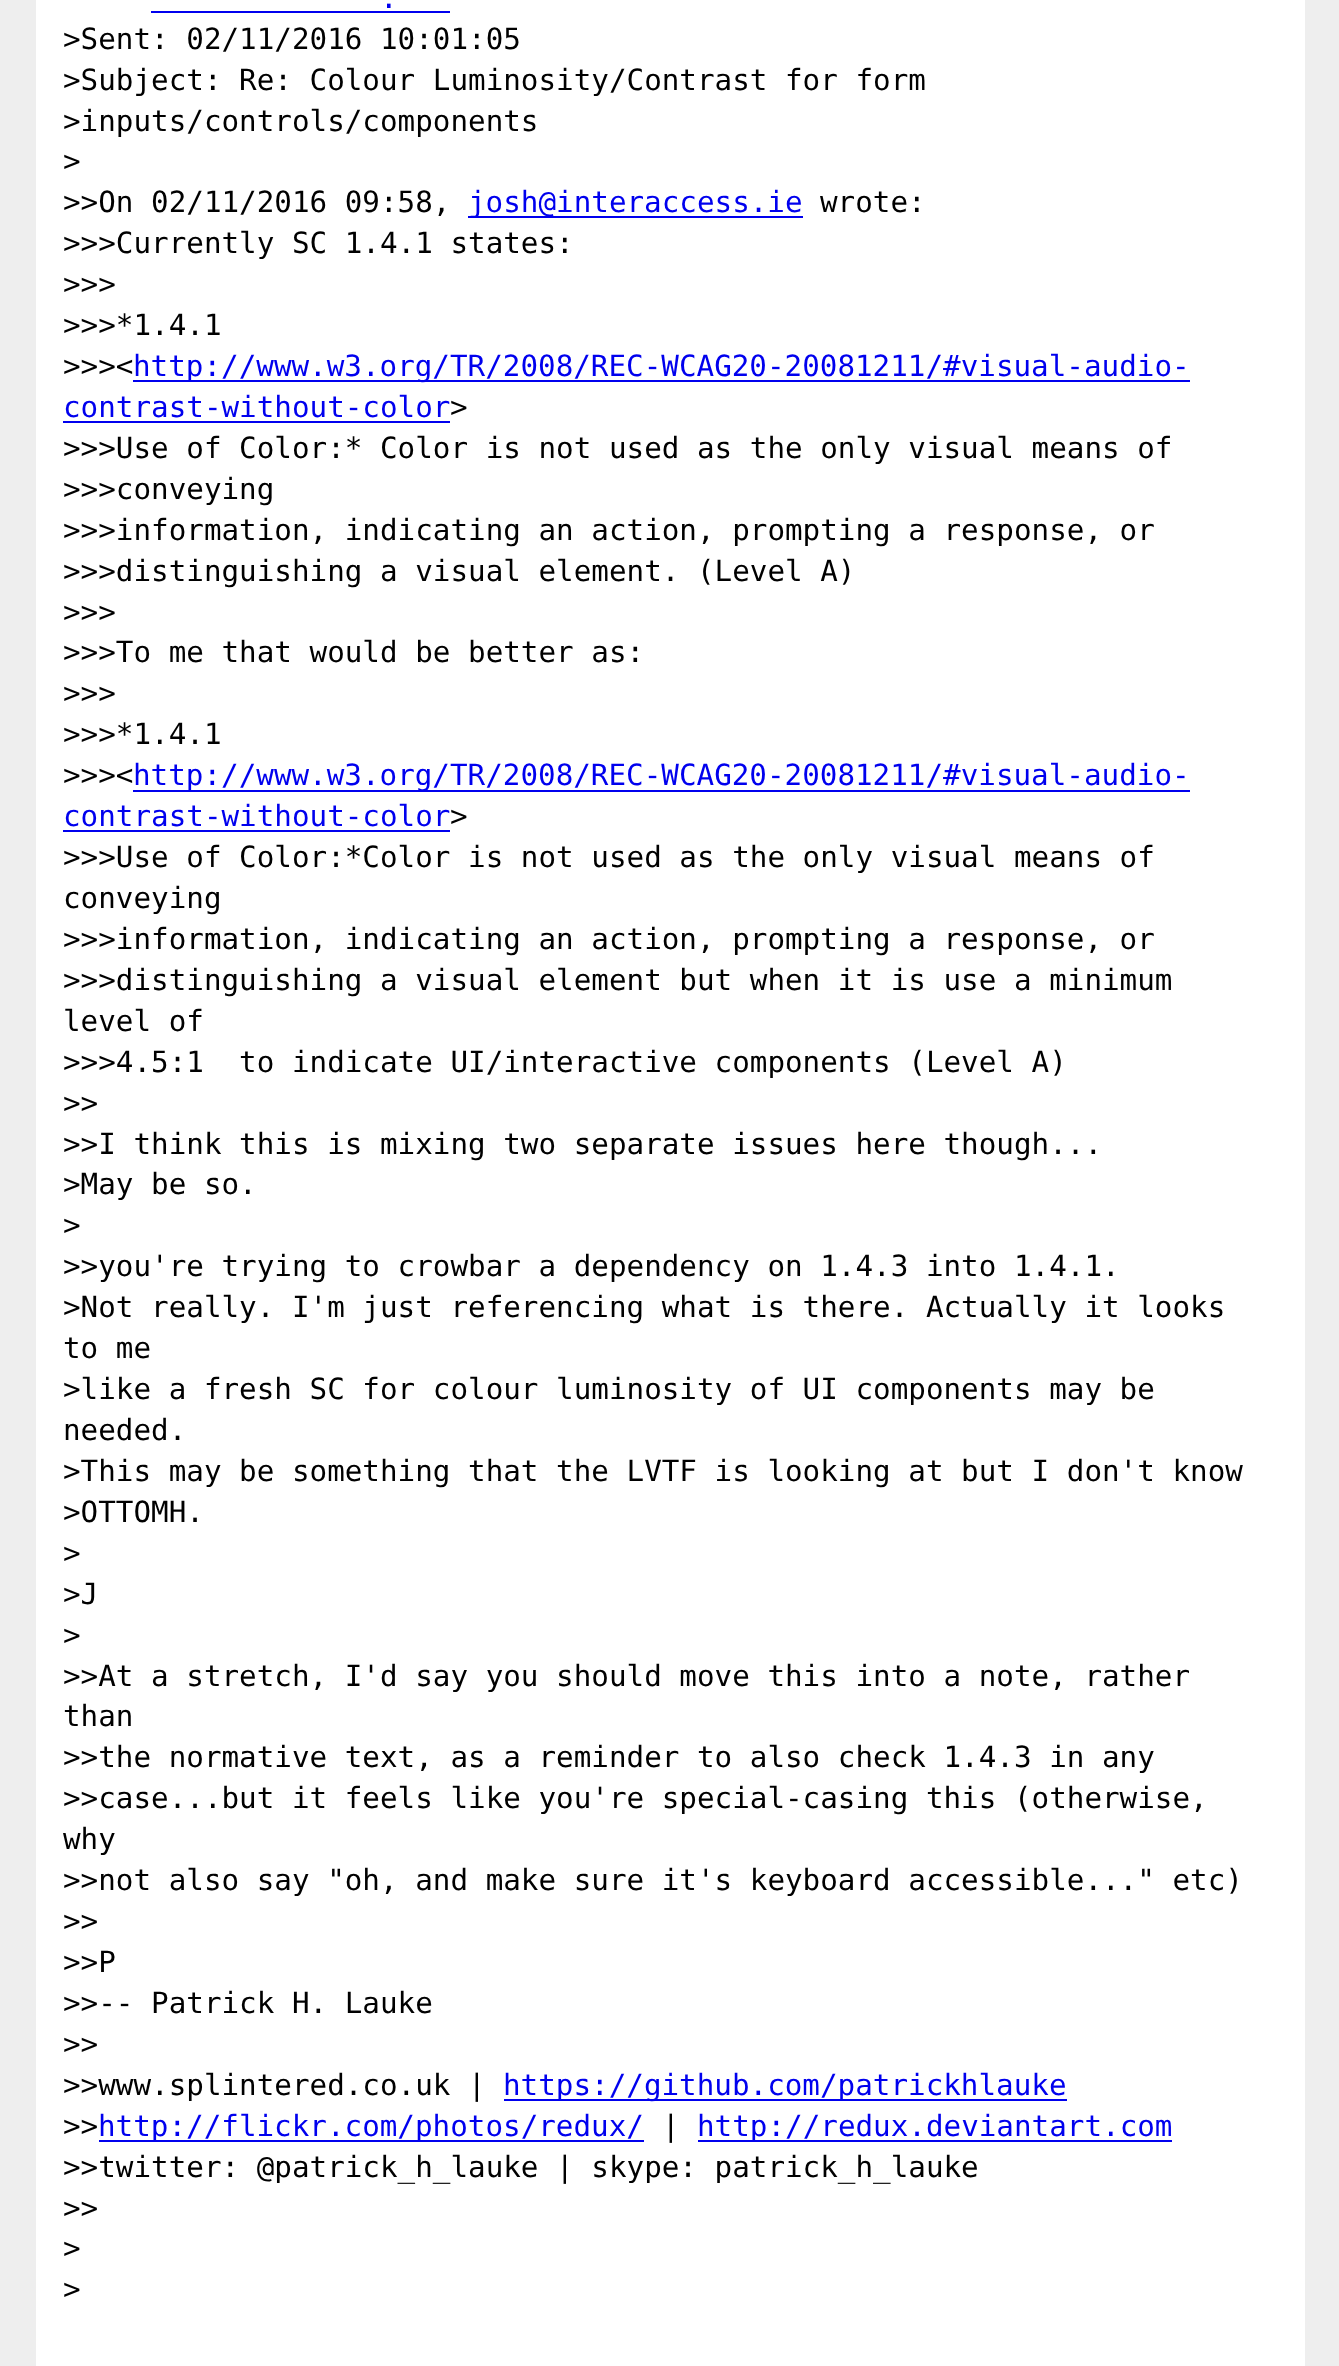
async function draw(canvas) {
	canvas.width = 1339;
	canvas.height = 2366;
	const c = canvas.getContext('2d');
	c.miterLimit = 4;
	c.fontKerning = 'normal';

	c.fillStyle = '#eee';
	c.fillRect(0, 0, 1339, 2366);
	c.fillStyle = '#fff';
	c.fillRect(36, 0, 1269, 2366);
	c.font = '29.25px DejaVu Sans Mono';
	c.fillStyle = '#00e';
	c.fillText('.', 380, 8);
	c.fillRect(151, 11, 299, 2);
	c.fillStyle = '#000';
	for (const [text, x, y] of [
		['>Sent: 02/11/2016 10:01:05', 63, 49],
		['>Subject: Re: Colour Luminosity/Contrast for form', 63, 90],
		['>inputs/controls/components', 63, 131],
		['>', 63, 171],
		['>>On 02/11/2016 09:58,', 63, 212],
	]) {
		c.fillText(text, x, y);
	}
	c.fillStyle = '#00e';
	c.fillRect(468, 216, 335, 2);
	c.fillText('josh@interaccess.ie', 468, 212);
	c.fillStyle = '#000';
	for (const [text, x, y] of [
		['wrote:', 820, 212],
		['>>>Currently SC 1.4.1 states:', 63, 253],
		['>>>', 63, 294],
		['>>>*1.4.1', 63, 335],
		['>>><', 63, 376],
	]) {
		c.fillText(text, x, y);
	}
	c.fillStyle = '#00e';
	c.fillRect(133, 380, 1057, 2);
	c.fillText('http://www.w3.org/TR/2008/REC-WCAG20-20081211/#visual-audio-', 133, 376);
	c.fillText('contrast-without-color', 63, 417);
	c.fillRect(63, 421, 387, 2);
	c.fillStyle = '#000';
	for (const [text, x, y] of [
		['>', 450, 417],
		['>>>Use of Color:* Color is not used as the only visual means of', 63, 458],
		['>>>conveying', 63, 499],
		['>>>information, indicating an action, prompting a response, or', 63, 540],
		['>>>distinguishing a visual element. (Level A)', 63, 581],
		['>>>', 63, 622],
		['>>>To me that would be better as:', 63, 662],
		['>>>', 63, 703],
		['>>>*1.4.1', 63, 744],
		['>>><', 63, 785],
	]) {
		c.fillText(text, x, y);
	}
	c.fillStyle = '#00e';
	c.fillRect(133, 790, 1057, 2);
	c.fillText('http://www.w3.org/TR/2008/REC-WCAG20-20081211/#visual-audio-', 133, 785);
	c.fillText('contrast-without-color', 63, 826);
	c.fillRect(63, 830, 387, 2);
	c.fillStyle = '#000';
	for (const [text, x, y] of [
		['>', 450, 826],
		['>>>Use of Color:*Color is not used as the only visual means of', 63, 867],
		['conveying', 63, 908],
		['>>>information, indicating an action, prompting a response, or', 63, 949],
		['>>>distinguishing a visual element but when it is use a minimum', 63, 990],
		['level of', 63, 1031],
		['>>>4.5:1  to indicate UI/interactive components (Level A)', 63, 1072],
		['>>', 63, 1113],
		['>>I think this is mixing two separate issues here though...', 63, 1154],
		['>May be so.', 63, 1194],
		['>', 63, 1235],
		['>>you\'re trying to crowbar a dependency on 1.4.3 into 1.4.1.', 63, 1276],
		['>Not really. I\'m just referencing what is there. Actually it looks', 63, 1317],
		['to me', 63, 1358],
		['>like a fresh SC for colour luminosity of UI components may be', 63, 1399],
		['needed.', 63, 1440],
		['>This may be something that the LVTF is looking at but I don\'t know', 63, 1481],
		['>OTTOMH.', 63, 1522],
		['>', 63, 1563],
		['>J', 63, 1604],
		['>', 63, 1645],
		['>>At a stretch, I\'d say you should move this into a note, rather', 63, 1686],
		['than', 63, 1726],
		['>>the normative text, as a reminder to also check 1.4.3 in any', 63, 1767],
		['>>case...but it feels like you\'re special-casing this (otherwise,', 63, 1808],
		['why', 63, 1849],
		['>>not also say "oh, and make sure it\'s keyboard accessible..." etc)', 63, 1890],
		['>>', 63, 1931],
		['>>P', 63, 1972],
		['>>-- Patrick H. Lauke', 63, 2013],
		['>>', 63, 2054],
		['>>www.splintered.co.uk |', 63, 2095],
	]) {
		c.fillText(text, x, y);
	}
	c.fillStyle = '#00e';
	c.fillRect(504, 2099, 563, 2);
	c.fillText('https://github.com/patrickhlauke', 503, 2095);
	c.fillStyle = '#000';
	c.fillText('>>', 63, 2136);
	c.fillStyle = '#00e';
	c.fillRect(99, 2140, 545, 2);
	c.fillText('http://flickr.com/photos/redux/', 98, 2136);
	c.fillStyle = '#000';
	c.fillText('|', 662, 2136);
	c.fillStyle = '#00e';
	c.fillRect(698, 2140, 474, 2);
	c.fillText('http://redux.deviantart.com', 697, 2136);
	c.fillStyle = '#000';
	for (const [text, x, y] of [
		['>>twitter: @patrick_h_lauke | skype: patrick_h_lauke', 63, 2177],
		['>>', 63, 2218],
		['>', 63, 2258],
		['>', 63, 2299],
	]) {
		c.fillText(text, x, y);
	}
}

draw(document.querySelector('canvas'));
